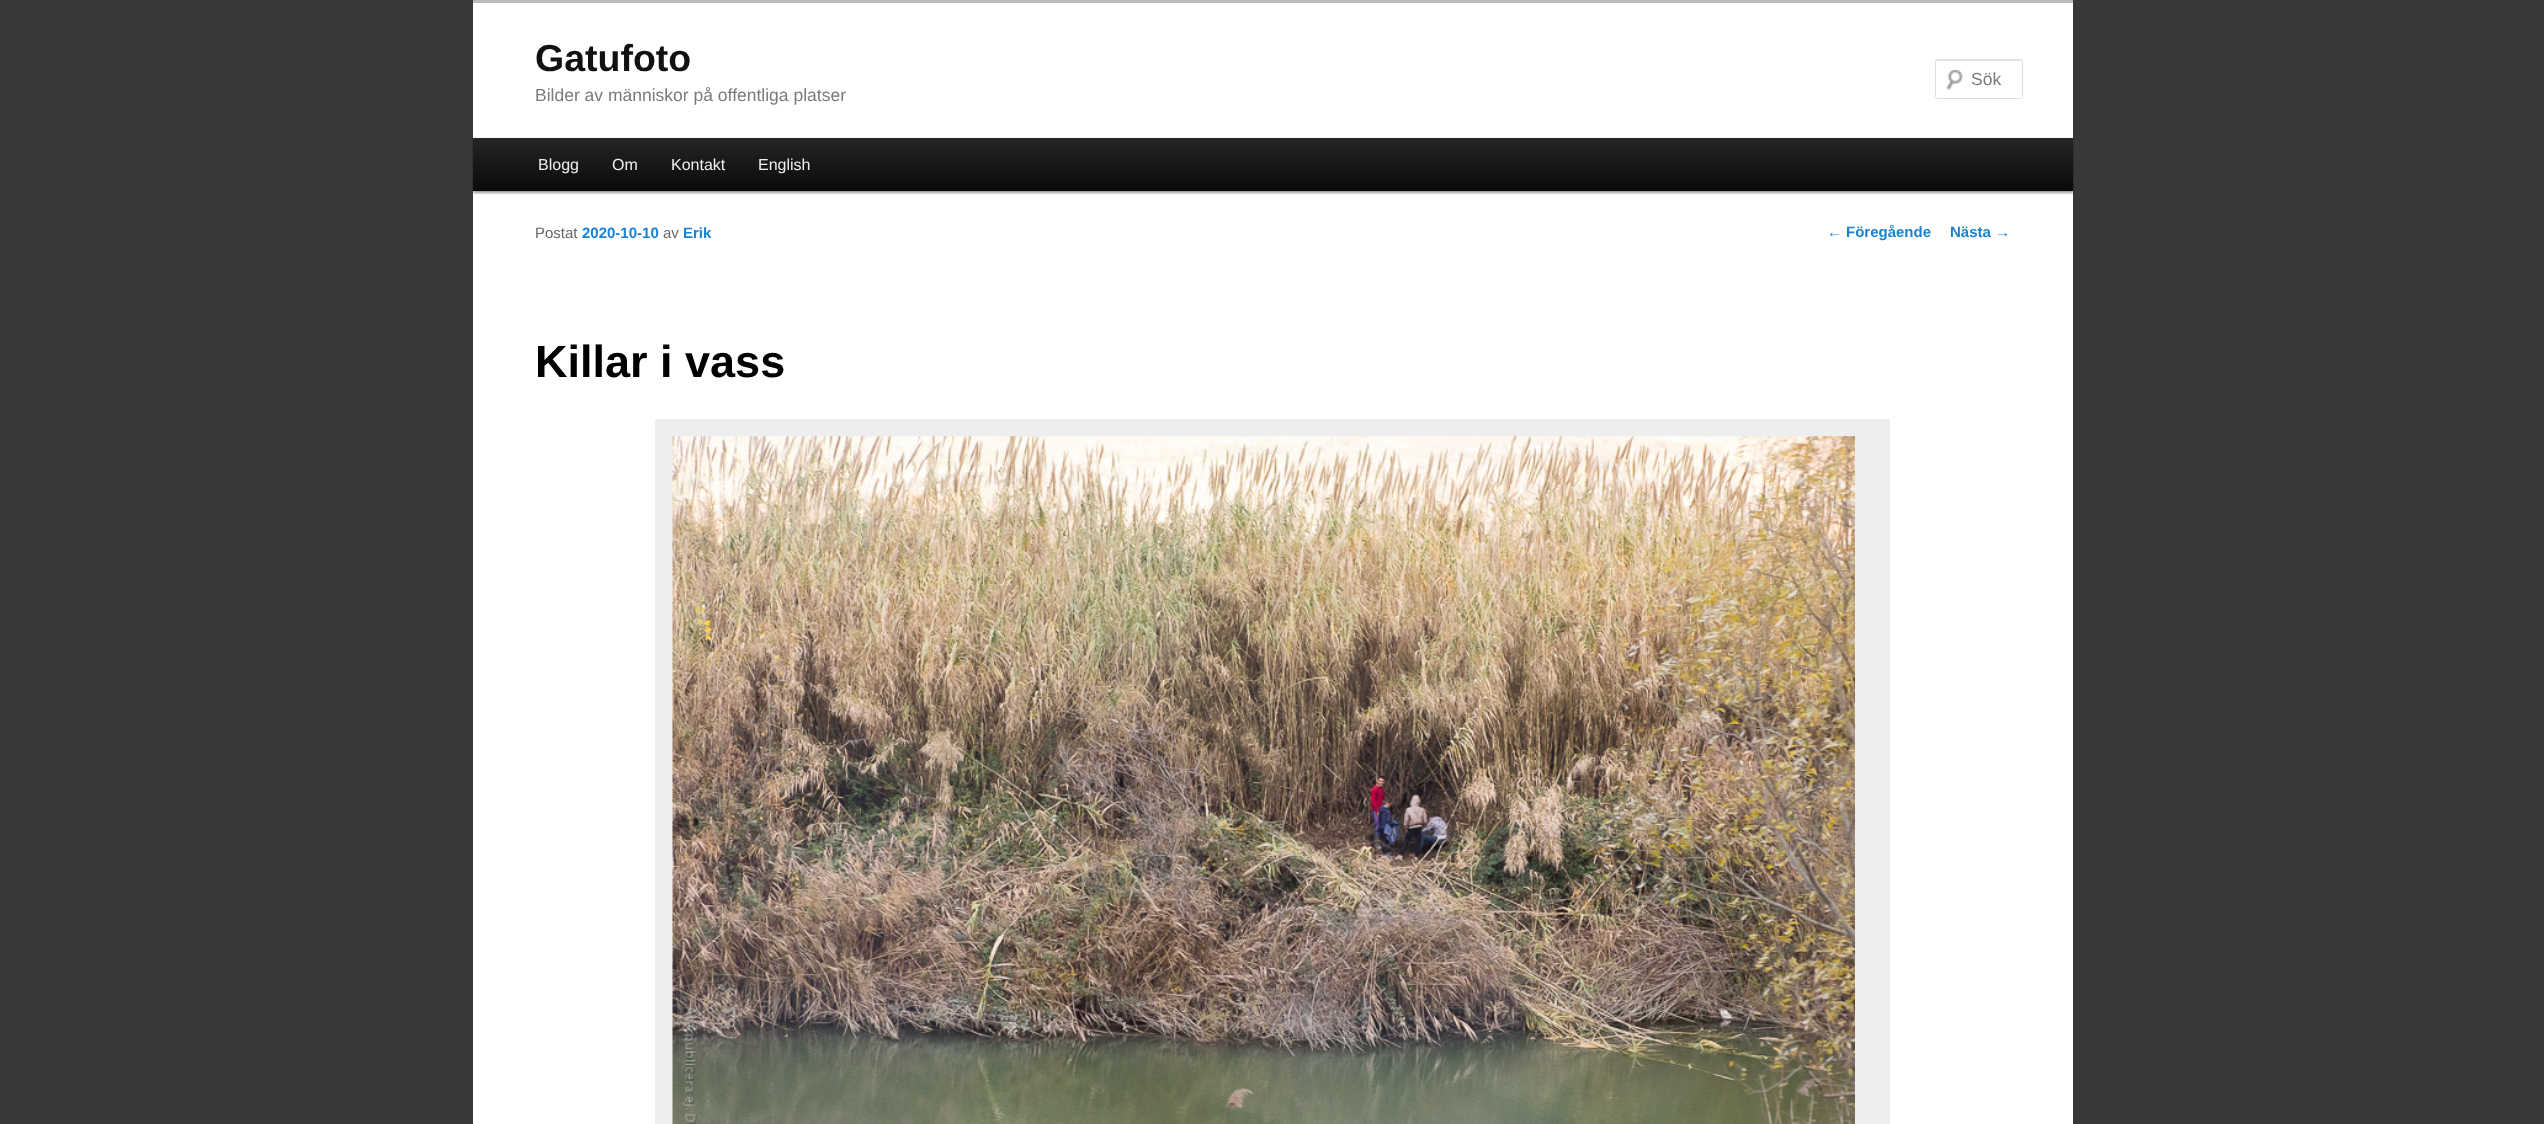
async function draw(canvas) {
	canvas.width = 2544;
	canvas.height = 1124;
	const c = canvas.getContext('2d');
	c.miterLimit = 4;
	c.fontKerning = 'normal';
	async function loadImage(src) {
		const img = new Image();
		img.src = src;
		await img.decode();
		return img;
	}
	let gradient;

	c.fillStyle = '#383838';
	c.fillRect(0, 0, 2544, 1124);
	c.fillStyle = '#fff';
	c.fillRect(473, 3, 1600, 1121);
	c.fillStyle = '#bbb';
	c.fillRect(473, 0, 1600, 3);
	c.font = 'bold 37.5px Liberation Sans';
	c.fillStyle = '#111';
	c.fillText('Gatufoto', 535, 71);
	c.font = '17.5px Liberation Sans';
	c.fillStyle = '#7a7a7a';
	c.fillText('Bilder av människor på offentliga platser', 535, 101);
	c.drawImage(await loadImage('img1.png'), 1946, 69, 17, 21);
	c.fillStyle = '#e6e6e6';
	c.beginPath();
	c.moveTo(1938, 61);
	c.lineTo(2020, 61);
	c.lineTo(2021, 62);
	c.bezierCurveTo(2021, 61, 2021, 60, 2020, 60);
	c.lineTo(1937, 60);
	c.bezierCurveTo(1936, 60, 1936, 61, 1936, 62);
	c.closePath();
	c.fill();
	c.beginPath();
	c.roundRect(1935.5, 59.5, 87, 39, 2);
	c.strokeStyle = '#ddd';
	c.stroke();
	c.fillStyle = '#7a7a7a';
	c.fillText('Sök', 1971, 85);
	c.fillStyle = '#00000066';
	c.filter = 'blur(1px)';
	c.beginPath();
	c.rect(473, 139, 1600, 54);
	c.fill();
	c.filter = 'none';
	gradient = c.createLinearGradient(1273, 137, 1273, 191);
	gradient.addColorStop(0, '#252525');
	gradient.addColorStop(1, '#0a0a0a');
	c.fillStyle = gradient;
	c.fillRect(473, 138, 1600, 53);
	c.font = '16px Liberation Sans';
	c.fillStyle = '#eee';
	for (const [text, x, y] of [
		['Blogg', 538, 170],
		['Om', 612, 170],
		['Kontakt', 671, 170],
		['English', 758, 170],
	]) {
		c.fillText(text, x, y);
	}
	c.font = '15px Liberation Sans';
	c.fillStyle = '#666';
	c.fillText('Postat', 535, 238);
	c.font = 'bold 15px Liberation Sans';
	c.fillStyle = '#1982d1';
	c.fillText('2020-10-10', 582, 238);
	c.font = '15px Liberation Sans';
	c.fillStyle = '#666';
	c.fillText('av', 663, 238);
	c.font = 'bold 15px Liberation Sans';
	c.fillStyle = '#1982d1';
	c.fillText('Erik', 683, 238);
	c.font = 'bold 45px Liberation Sans';
	c.fillStyle = '#000';
	c.fillText('Killar i vass', 535, 377);
	c.fillStyle = '#eee';
	c.fillRect(655, 419, 1235, 705);
	c.drawImage(await loadImage('img2.png'), 672, 436, 1183, 688);
	c.font = '15px Liberation Sans';
	c.fillStyle = '#1982d1';
	c.fillText('←', 1827, 237);
	c.font = 'bold 15px Liberation Sans';
	c.fillText('Föregående', 1846, 237);
	c.fillText('Nästa', 1950, 237);
	c.font = '15px Liberation Sans';
	c.fillText('→', 1995, 237);
}

draw(document.querySelector('canvas'));
